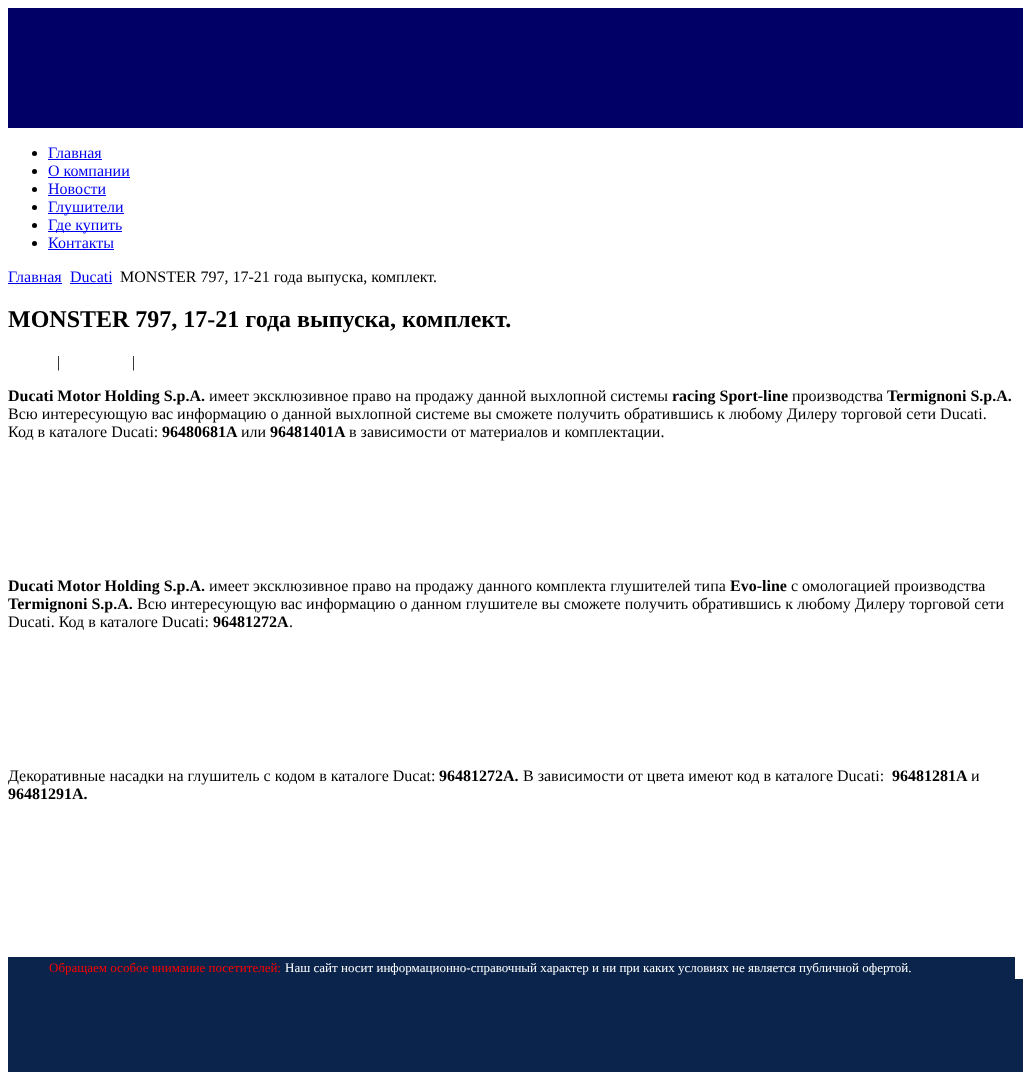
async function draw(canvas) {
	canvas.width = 1023;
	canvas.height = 1072;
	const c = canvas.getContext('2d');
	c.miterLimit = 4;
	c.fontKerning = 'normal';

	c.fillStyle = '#fff';
	c.fillRect(0, 0, 1023, 1072);
	c.fillStyle = '#006';
	c.fillRect(8, 8, 1015, 120);
	c.fillStyle = '#000';
	c.beginPath();
	c.arc(34.5, 153.5, 2.5, 0, 2 * Math.PI);
	c.fill();
	c.font = '16px Liberation Serif';
	c.fillStyle = '#00e';
	c.fillText('Главная', 48, 158);
	c.fillRect(48, 159, 54, 1);
	c.fillStyle = '#000';
	c.beginPath();
	c.arc(34.5, 171.5, 2.5, 0, 2 * Math.PI);
	c.fill();
	c.fillStyle = '#00e';
	c.fillText('О компании', 48, 176);
	c.fillRect(48, 177, 82, 1);
	c.fillStyle = '#000';
	c.beginPath();
	c.arc(34.5, 189.5, 2.5, 0, 2 * Math.PI);
	c.fill();
	c.fillStyle = '#00e';
	c.fillText('Новости', 48, 194);
	c.fillRect(48, 195, 58, 1);
	c.fillStyle = '#000';
	c.beginPath();
	c.arc(34.5, 207.5, 2.5, 0, 2 * Math.PI);
	c.fill();
	c.fillStyle = '#00e';
	c.fillRect(48, 213, 76, 1);
	c.fillText('Глушители', 48, 212);
	c.fillStyle = '#000';
	c.beginPath();
	c.arc(34.5, 225.5, 2.5, 0, 2 * Math.PI);
	c.fill();
	c.fillStyle = '#00e';
	c.fillRect(48, 231, 74, 1);
	c.fillText('Где купить', 48, 230);
	c.fillStyle = '#000';
	c.beginPath();
	c.arc(34.5, 243.5, 2.5, 0, 2 * Math.PI);
	c.fill();
	c.fillStyle = '#00e';
	c.fillText('Контакты', 48, 248);
	c.fillRect(48, 249, 66, 1);
	c.fillText('Главная', 8, 282);
	c.fillRect(8, 283, 54, 1);
	c.fillText('Ducati', 70, 282);
	c.fillRect(70, 283, 42, 1);
	c.fillStyle = '#000';
	c.fillText('MONSTER 797, 17-21 года выпуска, комплект.', 120, 282);
	c.font = 'bold 24px Liberation Serif';
	c.fillText('MONSTER 797, 17-21 года выпуска, комплект.', 8, 327);
	c.font = '16px Liberation Serif';
	c.fillText('|', 57, 367);
	c.fillText('|', 132, 367);
	c.font = 'bold 16px Liberation Serif';
	c.fillText('Ducati Motor Holding S.p.A.', 8, 401);
	c.font = '16px Liberation Serif';
	c.fillText('имеет эксклюзивное право на продажу данной выхлопной системы', 209, 401);
	c.font = 'bold 16px Liberation Serif';
	c.fillText('racing Sport-line', 672, 401);
	c.font = '16px Liberation Serif';
	c.fillText('производства', 792, 401);
	c.font = 'bold 16px Liberation Serif';
	c.fillText('Termignoni S.p.A.', 887, 401);
	c.font = '16px Liberation Serif';
	c.fillText('Всю интересующую вас информацию о данной выхлопной системе вы сможете получить обратившись к любому Дилеру торговой сети Ducati.', 8, 419);
	c.fillText('Код в каталоге Ducati:', 8, 437);
	c.font = 'bold 16px Liberation Serif';
	c.fillText('96480681A', 162, 437);
	c.font = '16px Liberation Serif';
	c.fillText('или', 241, 437);
	c.font = 'bold 16px Liberation Serif';
	c.fillText('96481401A', 270, 437);
	c.font = '16px Liberation Serif';
	c.fillText('в зависимости от материалов и комплектации.', 349, 437);
	c.font = 'bold 16px Liberation Serif';
	c.fillText('Ducati Motor Holding S.p.A.', 8, 591);
	c.font = '16px Liberation Serif';
	c.fillText('имеет эксклюзивное право на продажу данного комплекта глушителей типа', 209, 591);
	c.font = 'bold 16px Liberation Serif';
	c.fillText('Evo-line', 730, 591);
	c.font = '16px Liberation Serif';
	c.fillText('с омологацией производства', 791, 591);
	c.font = 'bold 16px Liberation Serif';
	c.fillText('Termignoni S.p.A.', 8, 609);
	c.font = '16px Liberation Serif';
	c.fillText('Всю интересующую вас информацию о данном глушителе вы сможете получить обратившись к любому Дилеру торговой сети', 137, 609);
	c.fillText('Ducati. Код в каталоге Ducati:', 8, 627);
	c.font = 'bold 16px Liberation Serif';
	c.fillText('96481272A', 213, 627);
	c.font = '16px Liberation Serif';
	c.fillText('.', 289, 627);
	c.fillText('Декоративные насадки на глушитель с кодом в каталоге Ducat:', 8, 781);
	c.font = 'bold 16px Liberation Serif';
	c.fillText('96481272A.', 439, 781);
	c.font = '16px Liberation Serif';
	c.fillText('В зависимости от цвета имеют код в каталоге Ducati:', 523, 781);
	c.font = 'bold 16px Liberation Serif';
	c.fillText('96481281A', 892, 781);
	c.font = '16px Liberation Serif';
	c.fillText('и', 971, 781);
	c.font = 'bold 16px Liberation Serif';
	c.fillText('96481291A.', 8, 799);
	c.fillStyle = '#0b244b';
	c.fillRect(8, 957, 1007, 22);
	c.font = '13px Liberation Serif';
	c.fillStyle = '#f00';
	c.fillText('Обращаем особое внимание посетителей:', 49, 972);
	c.fillStyle = '#fff';
	c.fillText('Наш сайт носит информационно-справочный характер и ни при каких условиях не является публичной офертой.', 285, 972);
	c.fillStyle = '#0b244b';
	c.fillRect(8, 979, 1015, 93);
}

draw(document.querySelector('canvas'));
